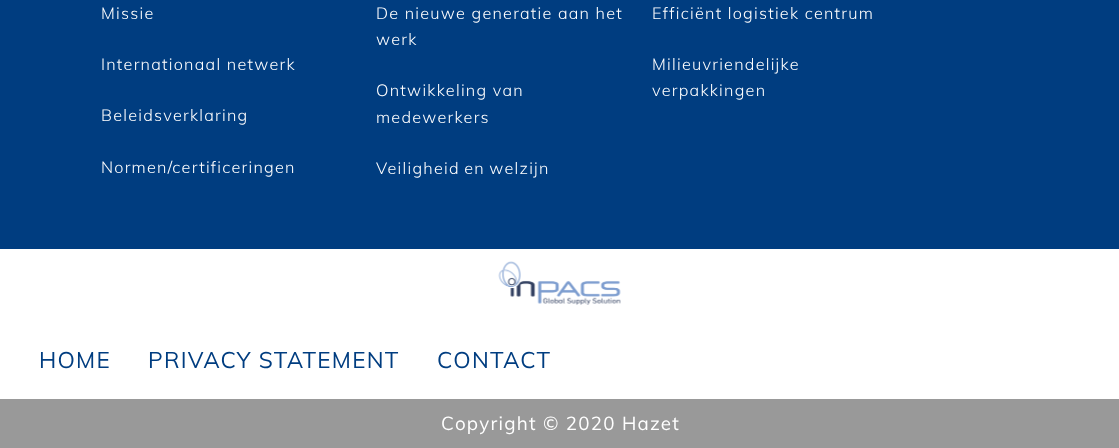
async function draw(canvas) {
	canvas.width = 1119;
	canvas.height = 448;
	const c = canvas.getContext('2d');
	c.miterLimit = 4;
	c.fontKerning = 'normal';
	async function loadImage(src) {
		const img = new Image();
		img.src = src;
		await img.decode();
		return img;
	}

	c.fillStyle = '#003d80';
	c.fillRect(0, 0, 1119, 448);
	c.letterSpacing = '1.25px';
	c.font = '300 16.25px Muli';
	c.fillStyle = '#fff';
	for (const [text, x, y] of [
		['Missie', 101, 19],
		['Internationaal netwerk', 101, 70],
		['Beleidsverklaring', 101, 121],
		['Normen/certificeringen', 101, 173],
		['De nieuwe generatie aan het', 376, 19],
		['werk', 376, 45],
		['Ontwikkeling van', 376, 96],
		['medewerkers', 376, 123],
	]) {
		c.fillText(text, x, y);
	}
	c.wordSpacing = '-1px';
	c.fillText('Veiligheid en welzijn', 376, 174);
	c.wordSpacing = '0px';
	for (const [text, x, y] of [
		['Efficiënt logistiek centrum', 652, 19],
		['Milieuvriendelijke', 652, 70],
		['verpakkingen', 652, 96],
	]) {
		c.fillText(text, x, y);
	}
	c.fillRect(0, 249, 1119, 150);
	c.drawImage(await loadImage('img1.png'), 498, 261, 123, 44);
	c.font = '22.5px Muli';
	c.fillStyle = '#003d80';
	for (const [text, x, y] of [
		['HOME', 39, 368],
		['PRIVACY STATEMENT', 148, 368],
		['CONTACT', 437, 368],
	]) {
		c.fillText(text, x, y);
	}
	c.fillStyle = '#999';
	c.fillRect(0, 399, 1119, 49);
	c.font = '18.75px Muli';
	c.fillStyle = '#fff';
	c.fillText('Copyright © 2020 Hazet', 441, 430);
}

draw(document.querySelector('canvas'));
